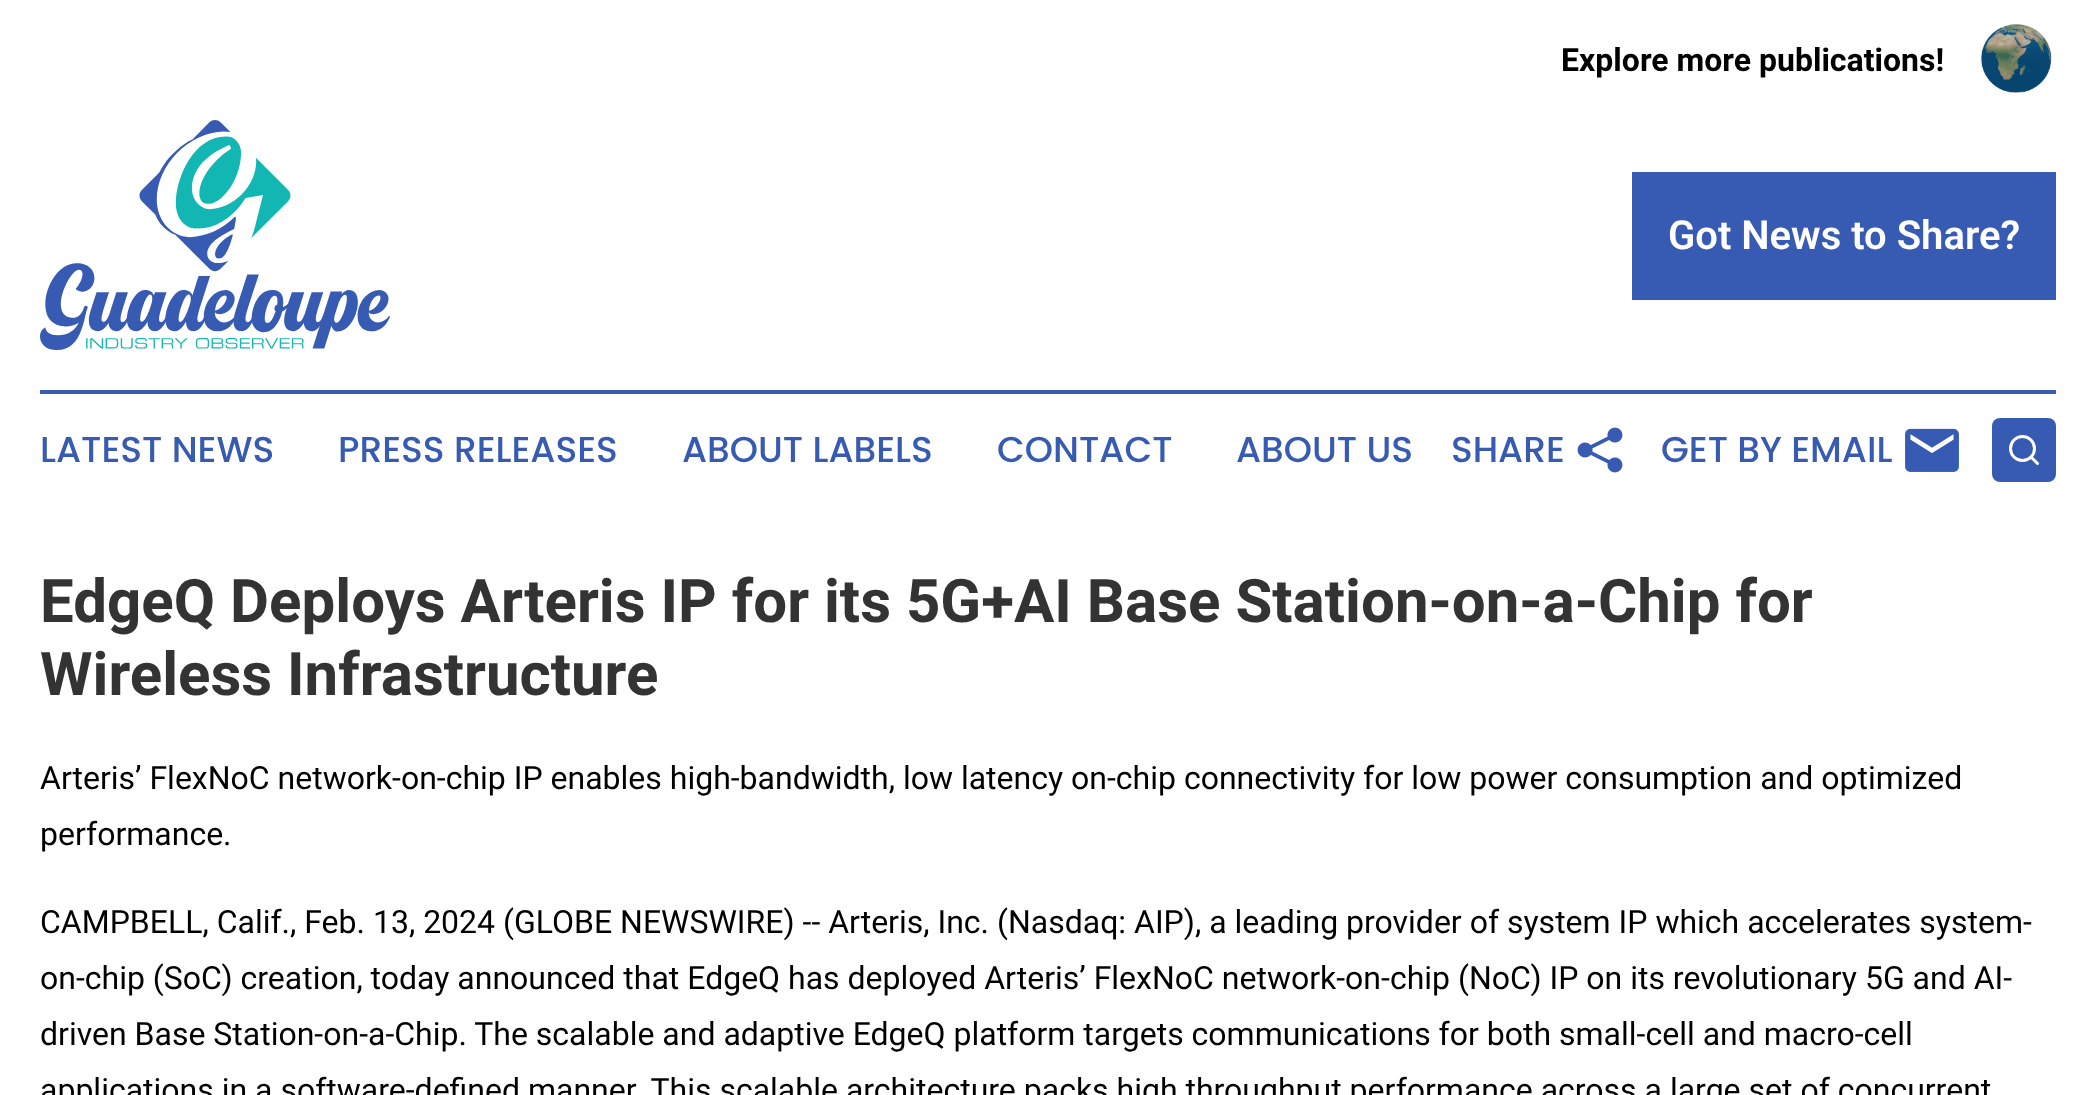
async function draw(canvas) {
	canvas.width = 2095;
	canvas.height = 1095;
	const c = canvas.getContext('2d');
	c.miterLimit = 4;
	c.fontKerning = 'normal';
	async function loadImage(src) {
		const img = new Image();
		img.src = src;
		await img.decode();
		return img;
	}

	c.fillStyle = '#fff';
	c.fillRect(0, 0, 2095, 1095);
	c.font = 'bold 32px Roboto';
	c.fillStyle = '#000';
	c.fillText('Explore more publications!', 1561, 71);
	c.drawImage(await loadImage('img1.png'), 1981, 24, 71, 69);
	c.drawImage(await loadImage('img2.png'), 40, 120, 350, 230);
	c.fillStyle = '#375ab2';
	c.fillRect(1632, 172, 424, 128);
	c.font = '600 40px Roboto';
	c.fillStyle = '#fff';
	c.fillText('Got News to Share?', 1668, 249);
	c.fillStyle = '#375ab2';
	c.fillRect(40, 390, 2016, 4);
	c.font = '500 36px Poppins';
	for (const [text, x, y] of [
		['LATEST NEWS', 40, 462],
		['PRESS RELEASES', 338, 462],
		['ABOUT LABELS', 682, 462],
		['CONTACT', 997, 462],
		['ABOUT US', 1236, 462],
		['SHARE', 1451, 462],
	]) {
		c.fillText(text, x, y);
	}
	c.drawImage(await loadImage('img3.png'), 1577, 427, 46, 46);
	c.fillText('GET BY EMAIL', 1661, 462);
	c.drawImage(await loadImage('img4.png'), 1905, 428, 54, 44);
	c.beginPath();
	c.roundRect(1992, 418, 64, 64, 8);
	c.fill();
	c.beginPath();
	c.arc(2022.5, 448.5, 12, 0, 2 * Math.PI);
	c.strokeStyle = '#fff';
	c.lineWidth = 3;
	c.stroke();
	c.beginPath();
	c.moveTo(2037.5, 463.5);
	c.lineTo(2031, 457);
	c.lineCap = 'round';
	c.lineJoin = 'round';
	c.stroke();
	c.font = 'bold 60px Roboto';
	c.fillStyle = '#333';
	c.fillText('EdgeQ Deploys Arteris IP for its 5G+AI Base Station-on-a-Chip for', 40, 622);
	c.fillText('Wireless Infrastructure', 40, 695);
	c.font = '32px Roboto';
	c.fillStyle = '#000';
	for (const [text, x, y] of [
		['Arteris’ FlexNoC network-on-chip IP enables high-bandwidth, low latency on-chip connectivity for low power consumption and optimized', 40, 789],
		['performance.', 40, 845],
		['CAMPBELL, Calif., Feb. 13, 2024 (GLOBE NEWSWIRE) -- Arteris, Inc. (Nasdaq: AIP), a leading provider of system IP which accelerates system-', 40, 933],
		['on-chip (SoC) creation, today announced that EdgeQ has deployed Arteris’ FlexNoC network-on-chip (NoC) IP on its revolutionary 5G and AI-', 40, 989],
		['driven Base Station-on-a-Chip. The scalable and adaptive EdgeQ platform targets communications for both small-cell and macro-cell', 40, 1045],
		['applications in a software-defined manner. This scalable architecture packs high throughput performance across a large set of concurrent', 40, 1101],
	]) {
		c.fillText(text, x, y);
	}
}

draw(document.querySelector('canvas'));
